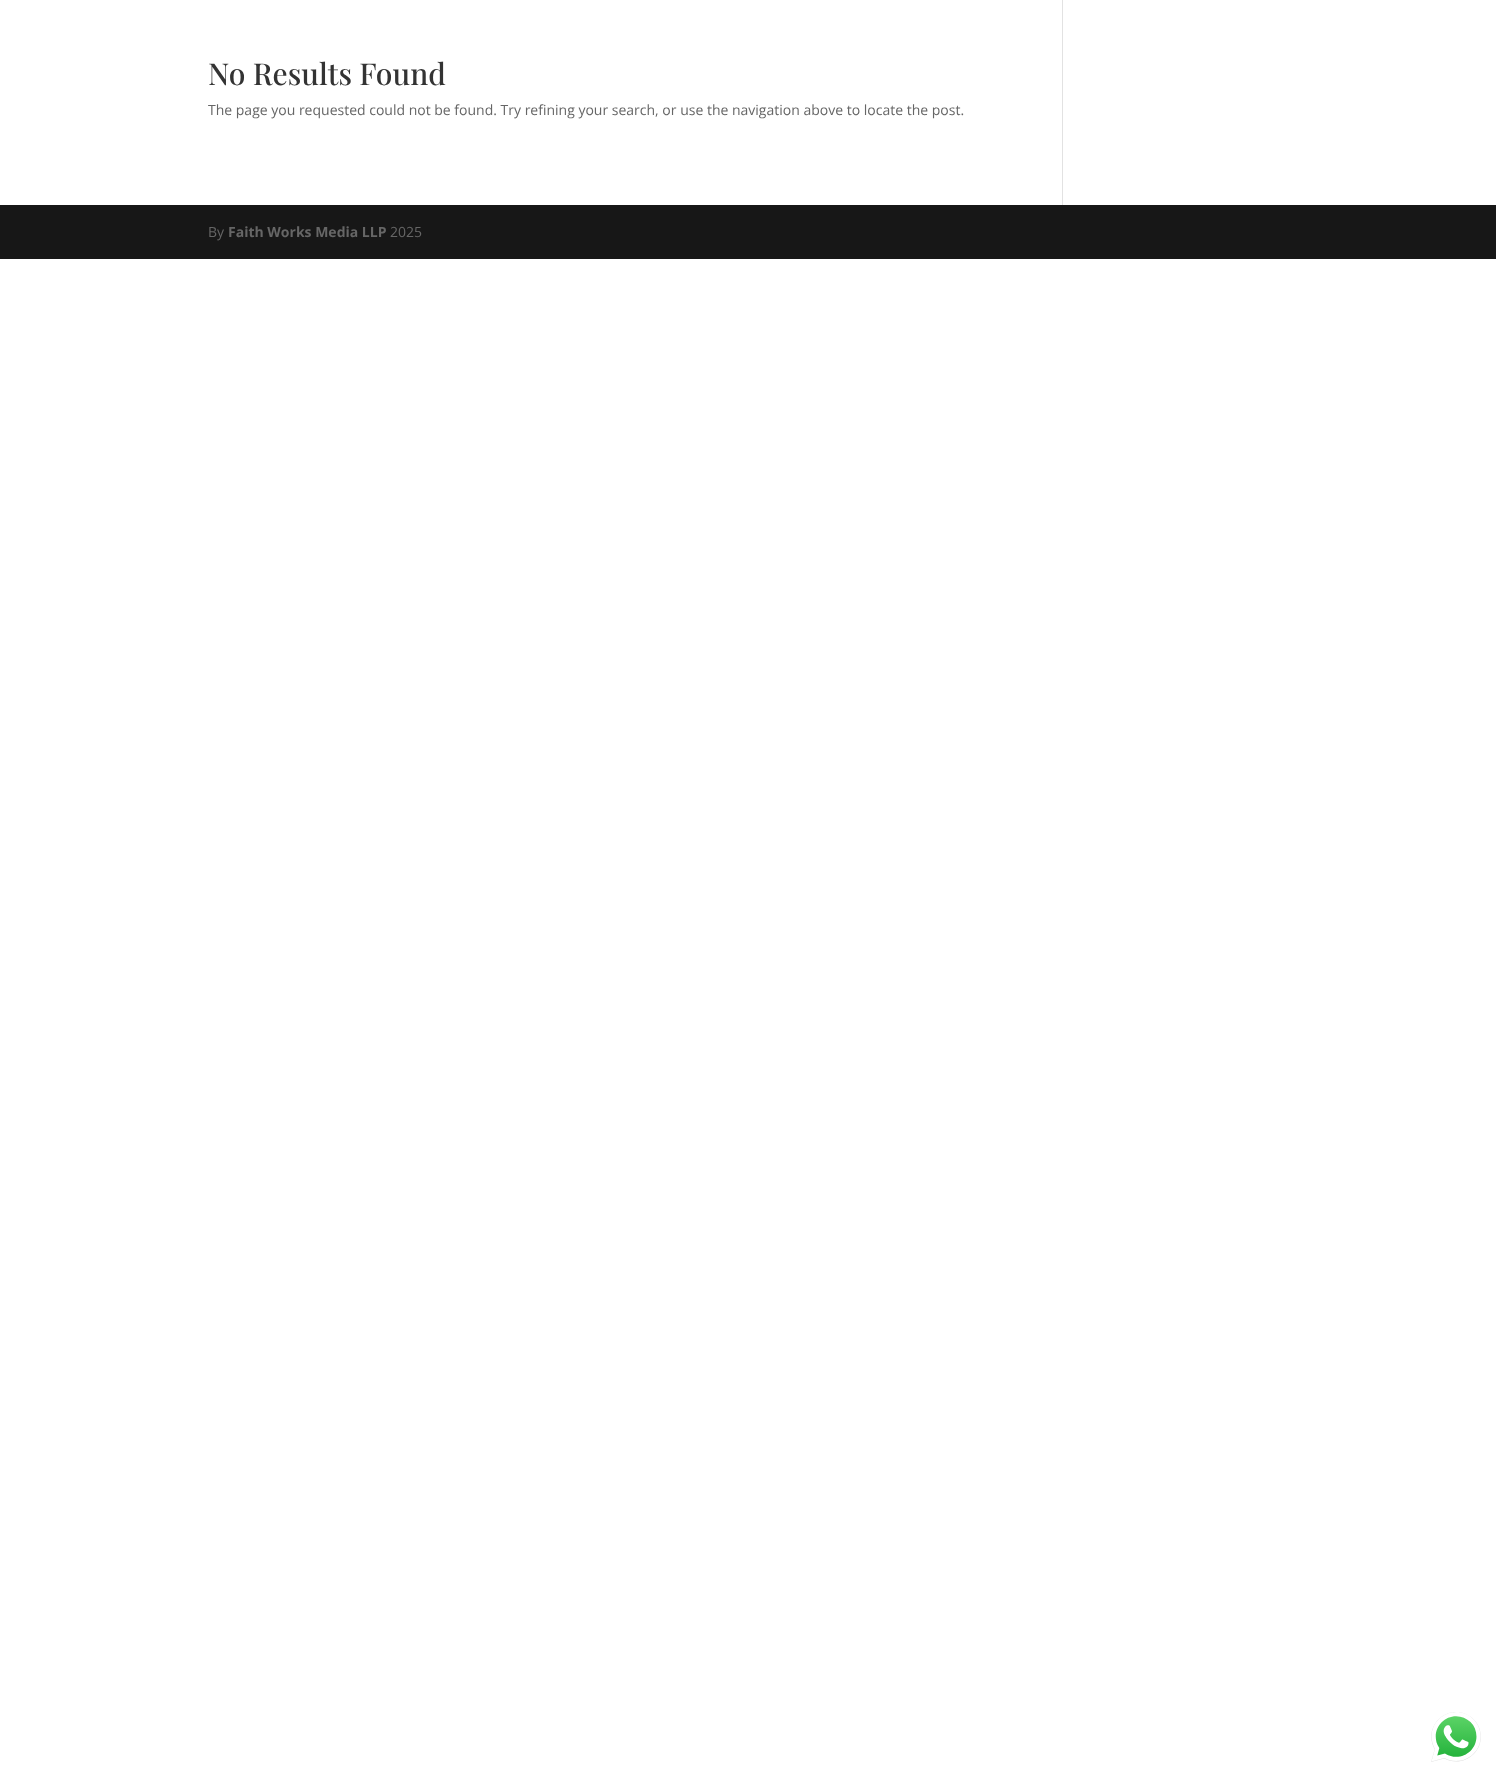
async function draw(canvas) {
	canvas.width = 1496;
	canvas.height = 1777;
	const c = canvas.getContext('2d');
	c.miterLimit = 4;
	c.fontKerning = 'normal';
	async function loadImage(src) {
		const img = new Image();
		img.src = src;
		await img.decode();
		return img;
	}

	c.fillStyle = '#fff';
	c.fillRect(0, 0, 1496, 1777);
	c.font = '500 30px Playfair Display';
	c.fillStyle = '#333';
	c.fillText('No Results Found', 208, 85);
	c.font = '14px Open Sans';
	c.fillStyle = '#666';
	c.fillText('The page you requested could not be found. Try refining your search, or use the navigation above to locate the post.', 208, 115);
	c.fillStyle = '#e2e2e2';
	c.fillRect(1062, 0, 1, 205);
	c.fillStyle = '#171717';
	c.fillRect(0, 205, 1496, 54);
	c.fillStyle = '#666';
	c.fillText('By', 208, 237);
	c.font = 'bold 14px Open Sans';
	c.fillText('Faith Works Media LLP', 228, 237);
	c.font = '14px Open Sans';
	c.fillText('2025', 390, 237);
	c.drawImage(await loadImage('img1.png'), 1431, 1712, 50, 50);
}

draw(document.querySelector('canvas'));
